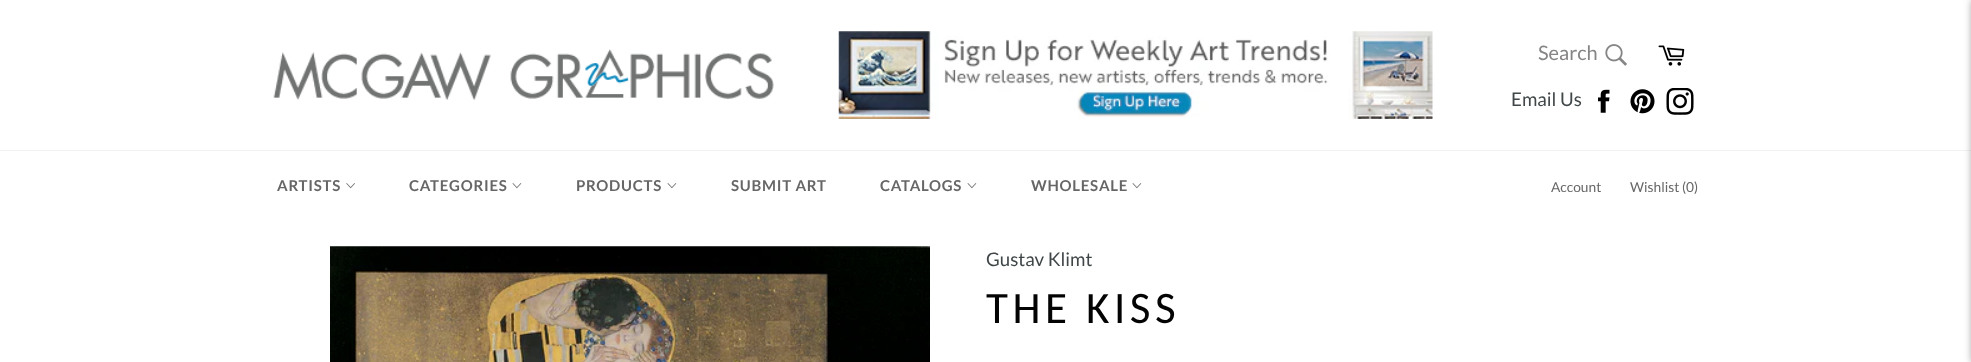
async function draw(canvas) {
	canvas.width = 1971;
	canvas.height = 362;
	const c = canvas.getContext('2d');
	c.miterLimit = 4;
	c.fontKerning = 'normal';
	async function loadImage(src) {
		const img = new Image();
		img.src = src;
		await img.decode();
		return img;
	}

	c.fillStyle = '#fff';
	c.fillRect(0, 0, 1971, 362);
	c.drawImage(await loadImage('img1.png'), 273, 49, 501, 51);
	c.drawImage(await loadImage('img2.png'), 838, 31, 595, 88);
	c.font = '20px Lato';
	c.fillStyle = '#868484';
	c.fillText('Search', 1538, 60);
	c.drawImage(await loadImage('img3.png'), 1605, 44, 22, 22);
	c.drawImage(await loadImage('img4.png'), 1658, 45, 27, 21);
	c.font = '18.75px Lato';
	c.fillStyle = '#414749';
	c.fillText('Email Us', 1511, 106);
	c.drawImage(await loadImage('img5.png'), 1598, 89, 12, 24);
	c.drawImage(await loadImage('img6.png'), 1630, 89, 25, 25);
	c.drawImage(await loadImage('img7.png'), 1666, 88, 28, 27);
	c.fillStyle = '#f2f2f2';
	c.fillRect(0, 150, 1971, 1);
	c.letterSpacing = '0.75px';
	c.font = 'bold 15px Lato';
	c.fillStyle = '#666';
	c.fillText('ARTISTS', 277, 191);
	c.drawImage(await loadImage('img8.png'), 346, 183, 9, 6);
	c.fillText('CATEGORIES', 409, 191);
	c.drawImage(await loadImage('img9.png'), 512, 183, 10, 6);
	c.fillText('PRODUCTS', 576, 191);
	c.drawImage(await loadImage('img9.png'), 667, 183, 10, 6);
	c.fillText('SUBMIT ART', 731, 191);
	c.fillText('CATALOGS', 880, 191);
	c.drawImage(await loadImage('img9.png'), 967, 183, 10, 6);
	c.fillText('WHOLESALE', 1031, 191);
	c.drawImage(await loadImage('img9.png'), 1132, 183, 10, 6);
	c.letterSpacing = '0px';
	c.font = '13.75px Lato';
	c.fillText('Account', 1551, 192);
	c.fillText('Wishlist (0)', 1630, 192);
	c.drawImage(await loadImage('img10.png'), 330, 246, 600, 116);
	c.font = '18.75px Lato';
	c.fillStyle = '#414749';
	c.fillText('Gustav Klimt', 986, 266);
	c.letterSpacing = '4.5px';
	c.font = '45px Carlito';
	c.fillStyle = '#030303';
	c.fillText('THE KISS', 986, 323);
	c.fillStyle = '#00000080';
	c.filter = 'blur(4.5px)';
	c.beginPath();
	c.rect(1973, 0, 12, 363);
	c.fill();
	c.filter = 'none';
}

draw(document.querySelector('canvas'));
